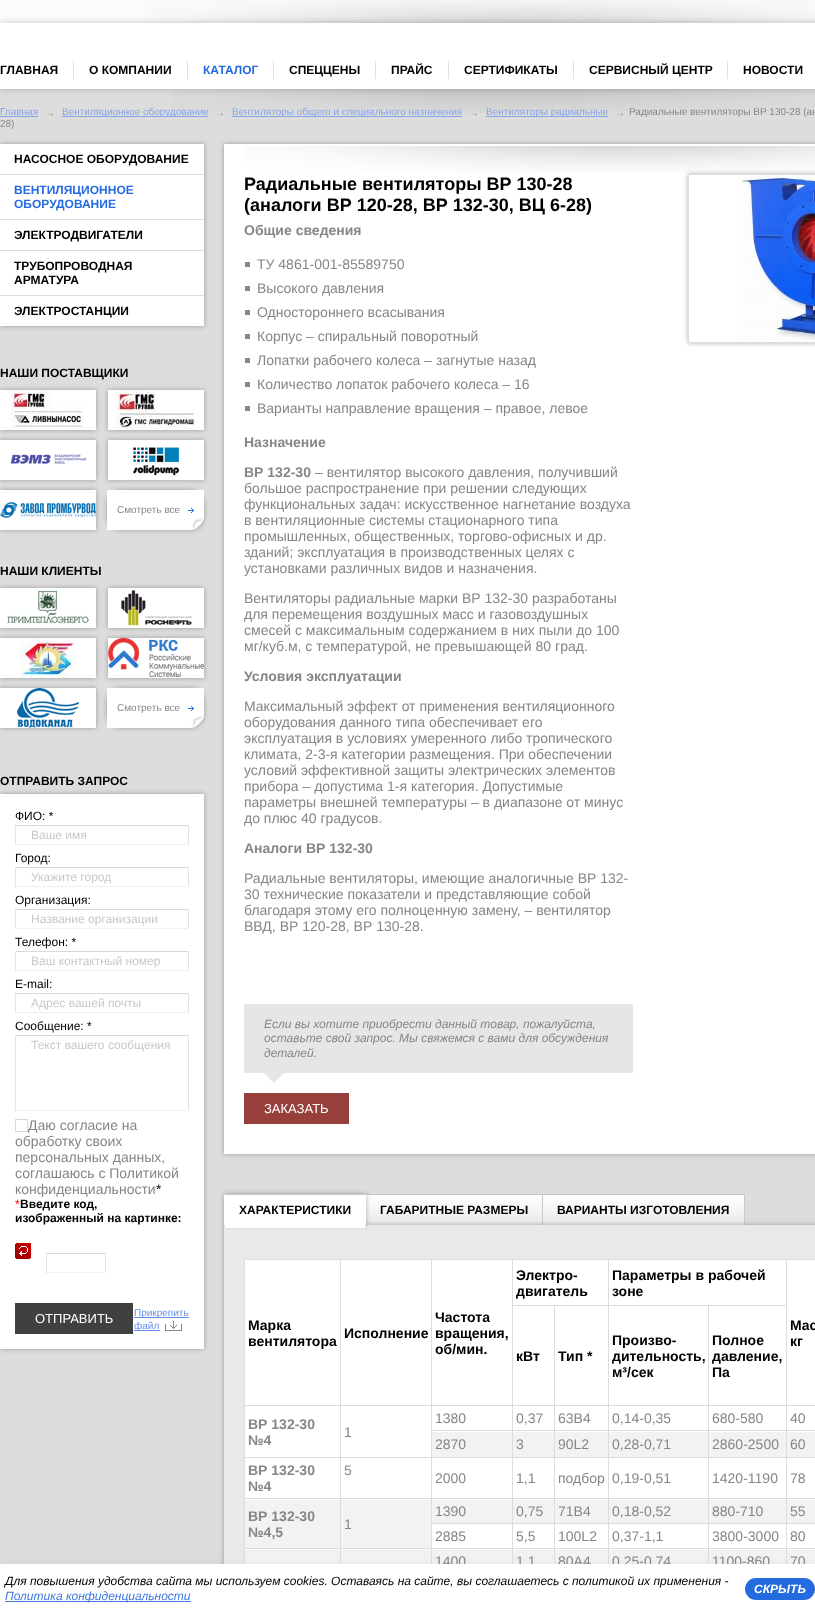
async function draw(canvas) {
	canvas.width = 815;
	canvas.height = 1608;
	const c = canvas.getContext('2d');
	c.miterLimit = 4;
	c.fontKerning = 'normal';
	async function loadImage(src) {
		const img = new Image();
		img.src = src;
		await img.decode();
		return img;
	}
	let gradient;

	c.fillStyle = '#ddd';
	c.fillRect(0, 0, 815, 1608);
	c.fillStyle = '#fbfbfb';
	c.fillRect(0, 0, 815, 23);
	c.drawImage(await loadImage('img1.png'), 145, 0, 670, 23);
	c.drawImage(await loadImage('img2.png'), 171, 89, 644, 24);
	c.fillStyle = '#00000033';
	c.filter = 'blur(3.5px)';
	c.beginPath();
	c.rect(0, 23, 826, 66);
	c.fill();
	c.filter = 'none';
	c.fillStyle = '#fff';
	c.fillRect(0, 23, 815, 66);
	c.font = 'bold 12px Liberation Sans';
	c.fillStyle = '#000';
	c.fillText('ГЛАВНАЯ', 0, 74);
	c.fillStyle = '#dfdfdf';
	c.fillRect(73, 61, 1, 18);
	c.fillStyle = '#000';
	c.fillText('О КОМПАНИИ', 89, 74);
	c.fillStyle = '#dfdfdf';
	c.fillRect(187, 61, 1, 18);
	c.fillStyle = '#256be0';
	c.fillText('КАТАЛОГ', 203, 74);
	c.fillStyle = '#dfdfdf';
	c.fillRect(273, 61, 1, 18);
	c.fillStyle = '#000';
	c.fillText('СПЕЦЦЕНЫ', 289, 74);
	c.fillStyle = '#dfdfdf';
	c.fillRect(375, 61, 1, 18);
	c.fillStyle = '#000';
	c.fillText('ПРАЙС', 391, 74);
	c.fillStyle = '#dfdfdf';
	c.fillRect(448, 61, 1, 18);
	c.fillStyle = '#000';
	c.fillText('СЕРТИФИКАТЫ', 464, 74);
	c.fillStyle = '#dfdfdf';
	c.fillRect(573, 61, 1, 18);
	c.fillStyle = '#000';
	c.fillText('СЕРВИСНЫЙ ЦЕНТР', 589, 74);
	c.fillStyle = '#dfdfdf';
	c.fillRect(727, 61, 1, 18);
	c.fillStyle = '#000';
	c.fillText('НОВОСТИ', 743, 74);
	c.font = '10px Liberation Sans';
	c.fillStyle = '#84a4eb';
	c.fillText('Главная', 0, 115);
	c.fillRect(0, 116, 38, 1);
	c.fillStyle = '#868686';
	c.fillText('→', 45, 116);
	c.fillStyle = '#84a4eb';
	c.fillRect(62, 116, 146, 1);
	c.fillText('Вентиляционное оборудование', 62, 115);
	c.fillStyle = '#868686';
	c.fillText('→', 215, 116);
	c.fillStyle = '#84a4eb';
	c.fillRect(232, 116, 230, 1);
	c.fillText('Вентиляторы общего и специального назначения', 232, 115);
	c.fillStyle = '#868686';
	c.fillText('→', 469, 116);
	c.fillStyle = '#84a4eb';
	c.fillRect(486, 116, 122, 1);
	c.fillText('Вентиляторы радиальные', 486, 115);
	c.fillStyle = '#868686';
	for (const [text, x, y] of [
		['→', 615, 116],
		['Радиальные вентиляторы ВР 130-28 (ан', 629, 115],
		['28)', 0, 127],
	]) {
		c.fillText(text, x, y);
	}
	c.fillStyle = '#0000004d';
	c.filter = 'blur(2.5px)';
	c.beginPath();
	c.rect(0, 144, 204, 182);
	c.fill();
	c.filter = 'none';
	c.fillStyle = '#fff';
	c.fillRect(0, 144, 204, 182);
	c.font = 'bold 12px Liberation Sans';
	c.fillStyle = '#000';
	c.fillText('НАСОСНОЕ ОБОРУДОВАНИЕ', 14, 163);
	c.fillStyle = '#ddd';
	c.fillRect(0, 174, 204, 1);
	c.fillStyle = '#256be0';
	c.fillText('ВЕНТИЛЯЦИОННОЕ', 14, 194);
	c.fillText('ОБОРУДОВАНИЕ', 14, 208);
	c.fillStyle = '#ddd';
	c.fillRect(0, 219, 204, 1);
	c.fillStyle = '#000';
	c.fillText('ЭЛЕКТРОДВИГАТЕЛИ', 14, 239);
	c.fillStyle = '#ddd';
	c.fillRect(0, 250, 204, 1);
	c.fillStyle = '#000';
	c.fillText('ТРУБОПРОВОДНАЯ', 14, 270);
	c.fillText('АРМАТУРА', 14, 284);
	c.fillStyle = '#ddd';
	c.fillRect(0, 295, 204, 1);
	c.fillStyle = '#000';
	c.fillText('ЭЛЕКТРОСТАНЦИИ', 14, 315);
	c.fillText('НАШИ ПОСТАВЩИКИ', 0, 377);
	c.fillStyle = '#0000004d';
	c.filter = 'blur(2.5px)';
	c.beginPath();
	c.rect(0, 390, 96, 40);
	c.fill();
	c.filter = 'none';
	c.fillStyle = '#fff';
	c.fillRect(0, 390, 96, 40);
	c.drawImage(await loadImage('img3.png'), 11, 390, 72, 40);
	c.fillStyle = '#0000004d';
	c.filter = 'blur(2.5px)';
	c.beginPath();
	c.rect(108, 390, 96, 40);
	c.fill();
	c.filter = 'none';
	c.fillStyle = '#fff';
	c.fillRect(108, 390, 96, 40);
	c.drawImage(await loadImage('img4.png'), 115, 390, 80, 40);
	c.fillStyle = '#0000004d';
	c.filter = 'blur(2.5px)';
	c.beginPath();
	c.rect(0, 440, 96, 40);
	c.fill();
	c.filter = 'none';
	c.fillStyle = '#fff';
	c.fillRect(0, 440, 96, 40);
	c.drawImage(await loadImage('img5.png'), 10, 454, 77, 10);
	c.fillStyle = '#0000004d';
	c.filter = 'blur(2.5px)';
	c.beginPath();
	c.rect(108, 440, 96, 40);
	c.fill();
	c.filter = 'none';
	c.fillStyle = '#fff';
	c.fillRect(108, 440, 96, 40);
	c.drawImage(await loadImage('img6.png'), 133, 447, 47, 29);
	c.fillStyle = '#0000004d';
	c.filter = 'blur(2.5px)';
	c.beginPath();
	c.rect(0, 490, 96, 40);
	c.fill();
	c.filter = 'none';
	c.fillStyle = '#fff';
	c.fillRect(0, 490, 96, 40);
	c.drawImage(await loadImage('img7.png'), 0, 502, 96, 16);
	c.fillRect(107, 490, 82, 40);
	c.save();
	c.beginPath();
	c.moveTo(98, 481);
	c.lineTo(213, 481);
	c.lineTo(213, 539);
	c.lineTo(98, 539);
	c.closePath();
	c.moveTo(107, 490);
	c.lineTo(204, 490);
	c.lineTo(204, 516);
	c.bezierCurveTo(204, 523.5, 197.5, 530, 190, 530);
	c.lineTo(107, 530);
	c.closePath();
	c.clip('evenodd');
	c.fillStyle = '#0000004d';
	c.filter = 'blur(2.5px)';
	c.beginPath();
	c.roundRect(107, 490, 97, 40, 14);
	c.fill();
	c.filter = 'none';
	c.restore();
	c.drawImage(await loadImage('img8.png'), 189, 490, 15, 40);
	c.font = '10px Liberation Sans';
	c.fillStyle = '#868686';
	c.fillText('Смотреть все', 117, 513);
	c.drawImage(await loadImage('img9.png'), 188, 508, 6, 5);
	c.font = 'bold 12px Liberation Sans';
	c.fillStyle = '#000';
	c.fillText('НАШИ КЛИЕНТЫ', 0, 575);
	c.fillStyle = '#0000004d';
	c.filter = 'blur(2.5px)';
	c.beginPath();
	c.rect(0, 588, 96, 40);
	c.fill();
	c.filter = 'none';
	c.fillStyle = '#fff';
	c.fillRect(0, 588, 96, 40);
	c.drawImage(await loadImage('img10.png'), 6, 588, 84, 36);
	c.fillStyle = '#0000004d';
	c.filter = 'blur(2.5px)';
	c.beginPath();
	c.rect(108, 588, 96, 40);
	c.fill();
	c.filter = 'none';
	c.fillStyle = '#fff';
	c.fillRect(108, 588, 96, 40);
	c.drawImage(await loadImage('img11.png'), 121, 590, 71, 36);
	c.fillStyle = '#0000004d';
	c.filter = 'blur(2.5px)';
	c.beginPath();
	c.rect(0, 638, 96, 40);
	c.fill();
	c.filter = 'none';
	c.fillStyle = '#fff';
	c.fillRect(0, 638, 96, 40);
	c.drawImage(await loadImage('img12.png'), 20, 638, 56, 40);
	c.fillStyle = '#0000004d';
	c.filter = 'blur(2.5px)';
	c.beginPath();
	c.rect(108, 638, 96, 40);
	c.fill();
	c.filter = 'none';
	c.fillStyle = '#fff';
	c.fillRect(108, 638, 96, 40);
	c.drawImage(await loadImage('img13.png'), 108, 638, 96, 39);
	c.fillStyle = '#0000004d';
	c.filter = 'blur(2.5px)';
	c.beginPath();
	c.rect(0, 688, 96, 40);
	c.fill();
	c.filter = 'none';
	c.fillStyle = '#fff';
	c.fillRect(0, 688, 96, 40);
	c.drawImage(await loadImage('img14.png'), 17, 688, 62, 40);
	c.fillRect(107, 688, 82, 40);
	c.save();
	c.beginPath();
	c.moveTo(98, 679);
	c.lineTo(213, 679);
	c.lineTo(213, 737);
	c.lineTo(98, 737);
	c.closePath();
	c.moveTo(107, 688);
	c.lineTo(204, 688);
	c.lineTo(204, 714);
	c.bezierCurveTo(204, 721.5, 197.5, 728, 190, 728);
	c.lineTo(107, 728);
	c.closePath();
	c.clip('evenodd');
	c.fillStyle = '#0000004d';
	c.filter = 'blur(2.5px)';
	c.beginPath();
	c.roundRect(107, 688, 97, 40, 14);
	c.fill();
	c.filter = 'none';
	c.restore();
	c.drawImage(await loadImage('img8.png'), 189, 688, 15, 40);
	c.font = '10px Liberation Sans';
	c.fillStyle = '#868686';
	c.fillText('Смотреть все', 117, 711);
	c.drawImage(await loadImage('img9.png'), 188, 706, 6, 5);
	c.fillStyle = '#0000004d';
	c.filter = 'blur(2.5px)';
	c.beginPath();
	c.rect(0, 794, 204, 555);
	c.fill();
	c.filter = 'none';
	c.font = 'bold 12px Liberation Sans';
	c.fillStyle = '#000';
	c.fillText('ОТПРАВИТЬ ЗАПРОС', 0, 785);
	c.fillStyle = '#fff';
	c.fillRect(0, 794, 204, 555);
	c.font = '12px Liberation Sans';
	c.fillStyle = '#000';
	c.fillText('ФИО: *', 15, 820);
	for (const [x, y, w, h, color] of [
		[15, 825, 174, 1, '#d9d9d9'],
		[188, 825, 1, 20, '#e5e5e5'],
		[15, 844, 174, 1, '#f0f0f0'],
		[15, 825, 1, 20, '#e5e5e5'],
	]) {
		c.fillStyle = color;
		c.fillRect(x, y, w, h);
	}
	c.fillStyle = '#c8c8c8';
	c.fillText('Ваше имя', 31, 839);
	c.fillStyle = '#000';
	c.fillText('Город:', 15, 862);
	for (const [x, y, w, h, color] of [
		[15, 867, 174, 1, '#d9d9d9'],
		[188, 867, 1, 20, '#e5e5e5'],
		[15, 886, 174, 1, '#f0f0f0'],
		[15, 867, 1, 20, '#e5e5e5'],
	]) {
		c.fillStyle = color;
		c.fillRect(x, y, w, h);
	}
	c.fillStyle = '#c8c8c8';
	c.fillText('Укажите город', 31, 881);
	c.fillStyle = '#000';
	c.fillText('Организация:', 15, 904);
	for (const [x, y, w, h, color] of [
		[15, 909, 174, 1, '#d9d9d9'],
		[188, 909, 1, 20, '#e5e5e5'],
		[15, 928, 174, 1, '#f0f0f0'],
		[15, 909, 1, 20, '#e5e5e5'],
	]) {
		c.fillStyle = color;
		c.fillRect(x, y, w, h);
	}
	c.fillStyle = '#c8c8c8';
	c.fillText('Название организации', 31, 923);
	c.fillStyle = '#000';
	c.fillText('Телефон: *', 15, 946);
	for (const [x, y, w, h, color] of [
		[15, 951, 174, 1, '#d9d9d9'],
		[188, 951, 1, 20, '#e5e5e5'],
		[15, 970, 174, 1, '#f0f0f0'],
		[15, 951, 1, 20, '#e5e5e5'],
	]) {
		c.fillStyle = color;
		c.fillRect(x, y, w, h);
	}
	c.fillStyle = '#c8c8c8';
	c.fillText('Ваш контактный номер', 31, 965);
	c.fillStyle = '#000';
	c.fillText('E-mail:', 15, 988);
	for (const [x, y, w, h, color] of [
		[15, 993, 174, 1, '#d9d9d9'],
		[188, 993, 1, 20, '#e5e5e5'],
		[15, 1012, 174, 1, '#f0f0f0'],
		[15, 993, 1, 20, '#e5e5e5'],
	]) {
		c.fillStyle = color;
		c.fillRect(x, y, w, h);
	}
	c.fillStyle = '#c8c8c8';
	c.fillText('Адрес вашей почты', 31, 1007);
	c.fillStyle = '#000';
	c.fillText('Сообщение: *', 15, 1030);
	for (const [x, y, w, h, color] of [
		[15, 1035, 174, 1, '#d9d9d9'],
		[188, 1035, 1, 76, '#e5e5e5'],
		[15, 1110, 174, 1, '#f0f0f0'],
		[15, 1035, 1, 76, '#e5e5e5'],
	]) {
		c.fillStyle = color;
		c.fillRect(x, y, w, h);
	}
	c.fillStyle = '#c8c8c8';
	c.fillText('Текст вашего сообщения', 31, 1049);
	c.strokeStyle = '#d9d9d9';
	c.strokeRect(15.5, 1119.5, 12, 12);
	c.font = '14px Liberation Sans';
	c.fillStyle = '#868686';
	for (const [text, x, y] of [
		['Даю согласие на', 28, 1130],
		['обработку своих', 15, 1146],
		['персональных данных,', 15, 1162],
		['соглашаюсь с Политикой', 15, 1178],
		['конфиденциальности', 15, 1194],
	]) {
		c.fillText(text, x, y);
	}
	c.fillStyle = '#000';
	c.fillText('*', 156, 1194);
	c.font = '12px Liberation Sans';
	c.fillStyle = '#f00';
	c.fillText('*', 15, 1208);
	c.font = 'bold 12px Liberation Sans';
	c.fillStyle = '#000';
	c.fillText('Введите код,', 20, 1208);
	c.fillText('изображенный на картинке:', 15, 1222);
	c.drawImage(await loadImage('img15.png'), 15, 1243, 16, 16);
	for (const [x, y, w, h, color] of [
		[46, 1253, 60, 1, '#d9d9d9'],
		[105, 1253, 1, 20, '#e5e5e5'],
		[46, 1272, 60, 1, '#f0f0f0'],
		[46, 1253, 1, 20, '#e5e5e5'],
		[15, 1303, 118, 31, '#404040'],
	]) {
		c.fillStyle = color;
		c.fillRect(x, y, w, h);
	}
	c.font = '13px Liberation Sans';
	c.fillStyle = '#fff';
	c.fillText('ОТПРАВИТЬ', 35, 1323);
	c.fillStyle = '#648fe6';
	c.fillRect(134, 1317, 55, 1);
	c.font = '10px Liberation Sans';
	c.fillText('Прикрепить', 134, 1316);
	c.fillRect(134, 1330, 26, 1);
	c.fillText('файл', 134, 1329);
	c.drawImage(await loadImage('img16.png'), 165, 1321, 17, 10);
	c.fillStyle = '#0000004d';
	c.filter = 'blur(2.5px)';
	c.beginPath();
	c.rect(224, 144, 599, 1010);
	c.fill();
	c.filter = 'none';
	c.fillStyle = '#fff';
	c.fillRect(224, 144, 591, 1010);
	c.drawImage(await loadImage('img17.png'), 245, 146, 570, 27);
	c.font = 'bold 18px Liberation Sans';
	c.fillStyle = '#000';
	c.fillText('Радиальные вентиляторы ВР 130-28', 244, 190);
	c.fillText('(аналоги ВР 120-28, ВР 132-30, ВЦ 6-28)', 244, 211);
	c.font = 'bold 14px Liberation Sans';
	c.fillStyle = '#868686';
	c.fillText('Общие сведения', 244, 235);
	c.fillRect(245, 262, 5, 5);
	c.font = '14px Liberation Sans';
	c.fillText('ТУ 4861-001-85589750', 257, 269);
	c.fillRect(245, 286, 5, 5);
	c.fillText('Высокого давления', 257, 293);
	c.fillRect(245, 310, 5, 5);
	c.fillText('Одностороннего всасывания', 257, 317);
	c.fillRect(245, 334, 5, 5);
	c.fillText('Корпус – спиральный поворотный', 257, 341);
	c.fillRect(245, 358, 5, 5);
	c.fillText('Лопатки рабочего колеса – загнутые назад', 257, 365);
	c.fillRect(245, 382, 5, 5);
	c.fillText('Количество лопаток рабочего колеса – 16', 257, 389);
	c.fillRect(245, 406, 5, 5);
	c.fillText('Варианты направление вращения – правое, левое', 257, 413);
	c.font = 'bold 14px Liberation Sans';
	c.fillText('Назначение', 244, 447);
	c.fillText('ВР 132-30', 244, 477);
	c.font = '14px Liberation Sans';
	for (const [text, x, y] of [
		['– вентилятор высокого давления, получивший', 315, 477],
		['большое распространение при решении следующих', 244, 493],
		['функциональных задач: искусственное нагнетание воздуха', 244, 509],
		['в вентиляционные системы стационарного типа', 244, 525],
		['промышленных, общественных, торгово-офисных и др.', 244, 541],
		['зданий; эксплуатация в производственных целях с', 244, 557],
		['установками различных видов и назначения.', 244, 573],
		['Вентиляторы радиальные марки ВР 132-30 разработаны', 244, 603],
		['для перемещения воздушных масс и газовоздушных', 244, 619],
		['смесей с максимальным содержанием в них пыли до 100', 244, 635],
		['мг/куб.м, с температурой, не превышающей 80 град.', 244, 651],
	]) {
		c.fillText(text, x, y);
	}
	c.font = 'bold 14px Liberation Sans';
	c.fillText('Условия эксплуатации', 244, 681);
	c.font = '14px Liberation Sans';
	for (const [text, x, y] of [
		['Максимальный эффект от применения вентиляционного', 244, 711],
		['оборудования данного типа обеспечивает его', 244, 727],
		['эксплуатация в условиях умеренного либо тропического', 244, 743],
		['климата, 2-3-я категории размещения. При обеспечении', 244, 759],
		['условий эффективной защиты электрических элементов', 244, 775],
		['прибора – допустима 1-я категория. Допустимые', 244, 791],
		['параметры внешней температуры – в диапазоне от минус', 244, 807],
		['до плюс 40 градусов.', 244, 823],
	]) {
		c.fillText(text, x, y);
	}
	c.font = 'bold 14px Liberation Sans';
	c.fillText('Аналоги ВР 132-30', 244, 853);
	c.font = '14px Liberation Sans';
	for (const [text, x, y] of [
		['Радиальные вентиляторы, имеющие аналогичные ВР 132-', 244, 883],
		['30 технические показатели и представляющие собой', 244, 899],
		['благодаря этому его полноценную замену, – вентилятор', 244, 915],
		['ВВД, ВР 120-28, ВР 130-28.', 244, 931],
	]) {
		c.fillText(text, x, y);
	}
	c.fillStyle = '#e6e6e6';
	c.fillRect(244, 1004, 389, 69);
	c.font = 'italic 12px Liberation Sans';
	c.fillStyle = '#868686';
	for (const [text, x, y] of [
		['Если вы хотите приобрести данный товар, пожалуйста,', 264, 1028],
		['оставьте свой запрос. Мы свяжемся с вами для обсуждения', 264, 1042],
		['деталей.', 264, 1057],
	]) {
		c.fillText(text, x, y);
	}
	c.fillStyle = '#e6e6e6';
	c.beginPath();
	c.moveTo(254, 1063);
	c.lineTo(294, 1063);
	c.lineTo(274, 1083);
	c.closePath();
	c.fill();
	c.fillStyle = '#973f3b';
	c.fillRect(244, 1093, 105, 31);
	c.font = '13px Liberation Sans';
	c.fillStyle = '#fff';
	c.fillText('ЗАКАЗАТЬ', 264, 1113);
	c.save();
	c.beginPath();
	c.moveTo(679, 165);
	c.lineTo(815, 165);
	c.lineTo(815, 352);
	c.lineTo(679, 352);
	c.closePath();
	c.moveTo(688, 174);
	c.lineTo(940, 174);
	c.lineTo(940, 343);
	c.lineTo(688, 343);
	c.closePath();
	c.clip('evenodd');
	c.fillStyle = '#0000004d';
	c.filter = 'blur(2.5px)';
	c.beginPath();
	c.rect(688, 174, 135, 169);
	c.fill();
	c.filter = 'none';
	c.restore();
	c.strokeStyle = '#ddd';
	c.strokeRect(688.5, 174.5, 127, 168);
	c.drawImage(await loadImage('img18.png'), 737, 175, 78, 166);
	gradient = c.createLinearGradient(454, 1195, 454, 1225);
	gradient.addColorStop(0, '#fff');
	gradient.addColorStop(1, '#eaeaea');
	c.fillStyle = gradient;
	c.fillRect(366, 1195, 176, 30);
	c.fillStyle = '#c9c9c9';
	c.fillRect(365, 1194, 380, 1);
	gradient = c.createLinearGradient(644, 1195, 644, 1225);
	gradient.addColorStop(0, '#fff');
	gradient.addColorStop(1, '#eaeaea');
	c.fillStyle = gradient;
	c.fillRect(543, 1195, 201, 30);
	c.fillStyle = '#c9c9c9';
	c.fillRect(744, 1194, 1, 31);
	c.fillRect(542, 1194, 1, 31);
	c.fillStyle = '#0000004d';
	c.filter = 'blur(2.5px)';
	c.beginPath();
	c.rect(224, 1225, 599, 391);
	c.fill();
	c.filter = 'none';
	c.fillStyle = '#e9e9e9';
	c.fillRect(224, 1225, 591, 339);
	c.fillStyle = '#0000004d';
	c.filter = 'blur(2.5px)';
	c.beginPath();
	c.rect(224, 1194, 142, 31);
	c.fill();
	c.filter = 'none';
	c.fillStyle = '#fff';
	c.fillRect(224, 1194, 142, 31);
	c.fillStyle = '#c9c9c9';
	c.beginPath();
	c.moveTo(224, 1194);
	c.lineTo(366, 1194);
	c.lineTo(365, 1195);
	c.lineTo(225, 1195);
	c.closePath();
	c.fill();
	c.font = 'bold 12px Liberation Sans';
	c.fillStyle = '#000';
	c.fillText('ХАРАКТЕРИСТИКИ', 239, 1214);
	c.fillStyle = '#fff';
	c.fillRect(225, 1225, 140, 3);
	c.fillStyle = '#000';
	c.fillText('ГАБАРИТНЫЕ РАЗМЕРЫ', 380, 1214);
	c.fillText('ВАРИАНТЫ ИЗГОТОВЛЕНИЯ', 557, 1214);
	for (const [x, y, w, h, color] of [
		[513, 1260, 95, 45, '#fff'],
		[786, 1259, 29, 1, '#ddd'],
		[708, 1305, 79, 1, '#ddd'],
		[786, 1405, 29, 1, '#ddd'],
		[786, 1430, 29, 1, '#ddd'],
		[432, 1431, 383, 1, '#fff'],
		[786, 1457, 29, 1, '#ddd'],
		[786, 1498, 29, 1, '#ddd'],
		[245, 1499, 570, 1, '#fff'],
		[786, 1523, 29, 1, '#ddd'],
		[786, 1548, 29, 1, '#ddd'],
		[245, 1549, 570, 1, '#fff'],
		[786, 1548, 1, 16, '#ddd'],
		[708, 1548, 79, 1, '#ddd'],
		[786, 1523, 1, 26, '#ddd'],
		[708, 1523, 79, 1, '#ddd'],
		[786, 1498, 1, 26, '#ddd'],
		[708, 1498, 79, 1, '#ddd'],
		[786, 1457, 1, 42, '#ddd'],
		[708, 1457, 79, 1, '#ddd'],
		[786, 1430, 1, 28, '#ddd'],
		[708, 1430, 79, 1, '#ddd'],
		[786, 1405, 1, 26, '#ddd'],
		[708, 1405, 79, 1, '#ddd'],
		[786, 1259, 1, 147, '#ddd'],
		[608, 1259, 179, 1, '#ddd'],
		[708, 1548, 1, 16, '#ddd'],
		[608, 1548, 101, 1, '#ddd'],
		[708, 1523, 1, 26, '#ddd'],
		[608, 1523, 101, 1, '#ddd'],
		[708, 1498, 1, 26, '#ddd'],
		[608, 1498, 101, 1, '#ddd'],
		[708, 1457, 1, 42, '#ddd'],
		[608, 1457, 101, 1, '#ddd'],
		[708, 1430, 1, 28, '#ddd'],
		[608, 1430, 101, 1, '#ddd'],
		[708, 1405, 1, 26, '#ddd'],
		[608, 1405, 101, 1, '#ddd'],
		[708, 1305, 1, 101, '#ddd'],
		[608, 1305, 101, 1, '#ddd'],
		[608, 1548, 1, 16, '#ddd'],
		[554, 1548, 55, 1, '#ddd'],
		[608, 1523, 1, 26, '#ddd'],
		[554, 1523, 55, 1, '#ddd'],
		[608, 1498, 1, 26, '#ddd'],
		[554, 1498, 55, 1, '#ddd'],
		[608, 1457, 1, 42, '#ddd'],
		[554, 1457, 55, 1, '#ddd'],
		[608, 1430, 1, 28, '#ddd'],
		[554, 1430, 55, 1, '#ddd'],
		[608, 1405, 1, 26, '#ddd'],
		[554, 1405, 55, 1, '#ddd'],
		[608, 1305, 1, 101, '#ddd'],
		[554, 1305, 55, 1, '#ddd'],
		[608, 1259, 1, 47, '#ddd'],
		[512, 1259, 97, 1, '#ddd'],
		[554, 1548, 1, 16, '#ddd'],
		[512, 1548, 43, 1, '#ddd'],
		[554, 1523, 1, 26, '#ddd'],
		[512, 1523, 43, 1, '#ddd'],
		[554, 1498, 1, 26, '#ddd'],
		[512, 1498, 43, 1, '#ddd'],
		[554, 1457, 1, 42, '#ddd'],
		[512, 1457, 43, 1, '#ddd'],
		[554, 1430, 1, 28, '#ddd'],
		[512, 1430, 43, 1, '#ddd'],
		[554, 1405, 1, 26, '#ddd'],
		[512, 1405, 43, 1, '#ddd'],
		[554, 1305, 1, 101, '#ddd'],
		[512, 1305, 43, 1, '#ddd'],
		[512, 1548, 1, 16, '#ddd'],
		[431, 1548, 82, 1, '#ddd'],
		[512, 1523, 1, 26, '#ddd'],
		[431, 1523, 82, 1, '#ddd'],
		[512, 1498, 1, 26, '#ddd'],
		[431, 1498, 82, 1, '#ddd'],
		[512, 1457, 1, 42, '#ddd'],
		[431, 1457, 82, 1, '#ddd'],
		[512, 1430, 1, 28, '#ddd'],
		[431, 1430, 82, 1, '#ddd'],
		[512, 1405, 1, 26, '#ddd'],
		[431, 1405, 82, 1, '#ddd'],
		[512, 1305, 1, 101, '#ddd'],
		[512, 1259, 1, 47, '#ddd'],
	]) {
		c.fillStyle = color;
		c.fillRect(x, y, w, h);
	}
	c.font = 'bold 14px Liberation Sans';
	c.fillStyle = '#000';
	c.fillText('Электро-', 516, 1280);
	c.fillText('двигатель', 516, 1296);
	c.fillStyle = '#fff';
	c.fillRect(609, 1260, 177, 45);
	c.fillStyle = '#000';
	c.fillText('Параметры в рабочей', 612, 1280);
	c.fillText('зоне', 612, 1296);
	for (const [x, y, w, h, color] of [
		[245, 1260, 95, 145, '#fff'],
		[431, 1259, 82, 1, '#ddd'],
		[431, 1548, 1, 16, '#ddd'],
		[340, 1548, 92, 1, '#ddd'],
		[431, 1523, 1, 26, '#ddd'],
		[431, 1498, 1, 26, '#ddd'],
		[340, 1498, 92, 1, '#ddd'],
		[431, 1457, 1, 42, '#ddd'],
		[340, 1457, 92, 1, '#ddd'],
		[431, 1430, 1, 28, '#ddd'],
		[431, 1405, 1, 26, '#ddd'],
		[340, 1405, 92, 1, '#ddd'],
		[431, 1259, 1, 147, '#ddd'],
		[340, 1259, 92, 1, '#ddd'],
		[340, 1548, 1, 16, '#ddd'],
		[244, 1548, 97, 1, '#ddd'],
		[340, 1498, 1, 51, '#ddd'],
		[244, 1498, 97, 1, '#ddd'],
		[340, 1457, 1, 42, '#ddd'],
		[244, 1457, 97, 1, '#ddd'],
		[340, 1405, 1, 53, '#ddd'],
		[244, 1405, 97, 1, '#ddd'],
		[340, 1259, 1, 147, '#ddd'],
		[244, 1259, 97, 1, '#ddd'],
		[244, 1548, 1, 16, '#ddd'],
		[244, 1498, 1, 51, '#ddd'],
		[244, 1457, 1, 42, '#ddd'],
		[244, 1405, 1, 53, '#ddd'],
		[244, 1259, 1, 147, '#ddd'],
	]) {
		c.fillStyle = color;
		c.fillRect(x, y, w, h);
	}
	c.fillStyle = '#000';
	c.fillText('Марка', 248, 1330);
	c.fillText('вентилятора', 248, 1346);
	c.fillStyle = '#fff';
	c.fillRect(341, 1260, 90, 145);
	c.fillStyle = '#000';
	c.fillText('Исполнение', 344, 1338);
	c.fillStyle = '#fff';
	c.fillRect(432, 1260, 80, 145);
	c.fillStyle = '#000';
	for (const [text, x, y] of [
		['Частота', 435, 1322],
		['вращения,', 435, 1338],
		['об/мин.', 435, 1354],
	]) {
		c.fillText(text, x, y);
	}
	c.fillStyle = '#fff';
	c.fillRect(787, 1260, 28, 145);
	c.fillStyle = '#000';
	c.fillText('Мас', 790, 1330);
	c.fillText('кг', 790, 1346);
	c.fillStyle = '#fff';
	c.fillRect(513, 1306, 41, 99);
	c.fillStyle = '#000';
	c.fillText('кВт', 516, 1361);
	c.fillStyle = '#fff';
	c.fillRect(555, 1306, 53, 99);
	c.fillStyle = '#000';
	c.fillText('Тип *', 558, 1361);
	c.fillStyle = '#fff';
	c.fillRect(609, 1306, 99, 99);
	c.fillStyle = '#000';
	for (const [text, x, y] of [
		['Произво-', 612, 1345],
		['дительность,', 612, 1361],
		['м³/сек', 612, 1377],
	]) {
		c.fillText(text, x, y);
	}
	c.fillStyle = '#fff';
	c.fillRect(709, 1306, 77, 99);
	c.fillStyle = '#000';
	for (const [text, x, y] of [
		['Полное', 712, 1345],
		['давление,', 712, 1361],
		['Па', 712, 1377],
	]) {
		c.fillText(text, x, y);
	}
	c.fillStyle = '#fff';
	c.fillRect(245, 1406, 95, 51);
	c.fillStyle = '#868686';
	c.fillText('ВР 132-30', 248, 1429);
	c.fillText('№4', 248, 1445);
	c.fillStyle = '#fff';
	c.fillRect(341, 1406, 90, 51);
	c.font = '14px Liberation Sans';
	c.fillStyle = '#868686';
	c.fillText('1', 344, 1437);
	c.fillStyle = '#fff';
	c.fillRect(432, 1406, 80, 24);
	c.fillStyle = '#868686';
	c.fillText('1380', 435, 1423);
	c.fillStyle = '#fff';
	c.fillRect(513, 1406, 41, 24);
	c.fillStyle = '#868686';
	c.fillText('0,37', 516, 1423);
	c.fillStyle = '#fff';
	c.fillRect(555, 1406, 53, 24);
	c.fillStyle = '#868686';
	c.fillText('63B4', 558, 1423);
	c.fillStyle = '#fff';
	c.fillRect(609, 1406, 99, 24);
	c.fillStyle = '#868686';
	c.fillText('0,14-0,35', 612, 1423);
	c.fillStyle = '#fff';
	c.fillRect(709, 1406, 77, 24);
	c.fillStyle = '#868686';
	c.fillText('680-580', 712, 1423);
	c.fillStyle = '#fff';
	c.fillRect(787, 1406, 28, 24);
	c.fillStyle = '#868686';
	c.fillText('40', 790, 1423);
	c.fillStyle = '#f2f2f2';
	c.fillRect(432, 1432, 80, 25);
	c.fillStyle = '#868686';
	c.fillText('2870', 435, 1449);
	c.fillStyle = '#f2f2f2';
	c.fillRect(513, 1432, 41, 25);
	c.fillStyle = '#868686';
	c.fillText('3', 516, 1449);
	c.fillStyle = '#f2f2f2';
	c.fillRect(555, 1432, 53, 25);
	c.fillStyle = '#868686';
	c.fillText('90L2', 558, 1449);
	c.fillStyle = '#f2f2f2';
	c.fillRect(609, 1432, 99, 25);
	c.fillStyle = '#868686';
	c.fillText('0,28-0,71', 612, 1449);
	c.fillStyle = '#f2f2f2';
	c.fillRect(709, 1432, 77, 25);
	c.fillStyle = '#868686';
	c.fillText('2860-2500', 712, 1449);
	c.fillStyle = '#f2f2f2';
	c.fillRect(787, 1432, 28, 25);
	c.fillStyle = '#868686';
	c.fillText('60', 790, 1449);
	c.fillStyle = '#fff';
	c.fillRect(245, 1458, 95, 40);
	c.font = 'bold 14px Liberation Sans';
	c.fillStyle = '#868686';
	c.fillText('ВР 132-30', 248, 1475);
	c.fillText('№4', 248, 1491);
	c.fillStyle = '#fff';
	c.fillRect(341, 1458, 90, 40);
	c.font = '14px Liberation Sans';
	c.fillStyle = '#868686';
	c.fillText('5', 344, 1475);
	c.fillStyle = '#fff';
	c.fillRect(432, 1458, 80, 40);
	c.fillStyle = '#868686';
	c.fillText('2000', 435, 1483);
	c.fillStyle = '#fff';
	c.fillRect(513, 1458, 41, 40);
	c.fillStyle = '#868686';
	c.fillText('1,1', 516, 1483);
	c.fillStyle = '#fff';
	c.fillRect(555, 1458, 53, 40);
	c.fillStyle = '#868686';
	c.fillText('подбор', 558, 1483);
	c.fillStyle = '#fff';
	c.fillRect(609, 1458, 99, 40);
	c.fillStyle = '#868686';
	c.fillText('0,19-0,51', 612, 1483);
	c.fillStyle = '#fff';
	c.fillRect(709, 1458, 77, 40);
	c.fillStyle = '#868686';
	c.fillText('1420-1190', 712, 1483);
	c.fillStyle = '#fff';
	c.fillRect(787, 1458, 28, 40);
	c.fillStyle = '#868686';
	c.fillText('78', 790, 1483);
	c.fillStyle = '#f2f2f2';
	c.fillRect(245, 1500, 95, 48);
	c.font = 'bold 14px Liberation Sans';
	c.fillStyle = '#868686';
	c.fillText('ВР 132-30', 248, 1521);
	c.fillText('№4,5', 248, 1537);
	c.fillStyle = '#f2f2f2';
	c.fillRect(341, 1500, 90, 48);
	c.font = '14px Liberation Sans';
	c.fillStyle = '#868686';
	c.fillText('1', 344, 1529);
	c.fillStyle = '#f2f2f2';
	c.fillRect(432, 1500, 80, 23);
	c.fillStyle = '#868686';
	c.fillText('1390', 435, 1516);
	c.fillStyle = '#f2f2f2';
	c.fillRect(513, 1500, 41, 23);
	c.fillStyle = '#868686';
	c.fillText('0,75', 516, 1516);
	c.fillStyle = '#f2f2f2';
	c.fillRect(555, 1500, 53, 23);
	c.fillStyle = '#868686';
	c.fillText('71B4', 558, 1516);
	c.fillStyle = '#f2f2f2';
	c.fillRect(609, 1500, 99, 23);
	c.fillStyle = '#868686';
	c.fillText('0,18-0,52', 612, 1516);
	c.fillStyle = '#f2f2f2';
	c.fillRect(709, 1500, 77, 23);
	c.fillStyle = '#868686';
	c.fillText('880-710', 712, 1516);
	c.fillStyle = '#f2f2f2';
	c.fillRect(787, 1500, 28, 23);
	c.fillStyle = '#868686';
	c.fillText('55', 790, 1516);
	c.fillStyle = '#fff';
	c.fillRect(432, 1524, 80, 24);
	c.fillStyle = '#868686';
	c.fillText('2885', 435, 1541);
	c.fillStyle = '#fff';
	c.fillRect(513, 1524, 41, 24);
	c.fillStyle = '#868686';
	c.fillText('5,5', 516, 1541);
	c.fillStyle = '#fff';
	c.fillRect(555, 1524, 53, 24);
	c.fillStyle = '#868686';
	c.fillText('100L2', 558, 1541);
	c.fillStyle = '#fff';
	c.fillRect(609, 1524, 99, 24);
	c.fillStyle = '#868686';
	c.fillText('0,37-1,1', 612, 1541);
	c.fillStyle = '#fff';
	c.fillRect(709, 1524, 77, 24);
	c.fillStyle = '#868686';
	c.fillText('3800-3000', 712, 1541);
	c.fillStyle = '#fff';
	c.fillRect(787, 1524, 28, 24);
	c.fillStyle = '#868686';
	c.fillText('80', 790, 1541);
	for (const [x, y, w, h, color] of [
		[245, 1550, 95, 14, '#f2f2f2'],
		[341, 1550, 90, 14, '#f2f2f2'],
		[432, 1550, 80, 14, '#f2f2f2'],
	]) {
		c.fillStyle = color;
		c.fillRect(x, y, w, h);
	}
	c.fillStyle = '#868686';
	c.fillText('1400', 435, 1566);
	c.fillStyle = '#f2f2f2';
	c.fillRect(513, 1550, 41, 14);
	c.fillStyle = '#868686';
	c.fillText('1,1', 516, 1566);
	c.fillStyle = '#f2f2f2';
	c.fillRect(555, 1550, 53, 14);
	c.fillStyle = '#868686';
	c.fillText('80A4', 558, 1566);
	c.fillStyle = '#f2f2f2';
	c.fillRect(609, 1550, 99, 14);
	c.fillStyle = '#868686';
	c.fillText('0,25-0,74', 612, 1566);
	c.fillStyle = '#f2f2f2';
	c.fillRect(709, 1550, 77, 14);
	c.fillStyle = '#868686';
	c.fillText('1100-860', 712, 1566);
	c.fillStyle = '#f2f2f2';
	c.fillRect(787, 1550, 28, 14);
	c.fillStyle = '#868686';
	c.fillText('70', 790, 1566);
	c.fillStyle = '#0000000f';
	c.filter = 'blur(5px)';
	c.beginPath();
	c.rect(0, 1565, 815, 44);
	c.fill();
	c.filter = 'none';
	c.fillStyle = '#fff';
	c.fillRect(0, 1564, 815, 44);
	c.font = 'italic 12px Liberation Sans';
	c.fillStyle = '#000';
	c.fillText('Для повышения удобства сайта мы используем cookies. Оставаясь на сайте, вы соглашаетесь с политикой их применения -', 5, 1585);
	c.fillStyle = '#3e77e2';
	c.fillRect(5, 1601, 186, 1);
	c.fillText('Политика конфиденциальности', 5, 1600);
	c.fillStyle = '#256be0';
	c.beginPath();
	c.roundRect(745, 1578, 70, 22, 11);
	c.fill();
	c.font = 'italic bold 12px Liberation Sans';
	c.fillStyle = '#fff';
	c.fillText('СКРЫТЬ', 754, 1593);
}

draw(document.querySelector('canvas'));
